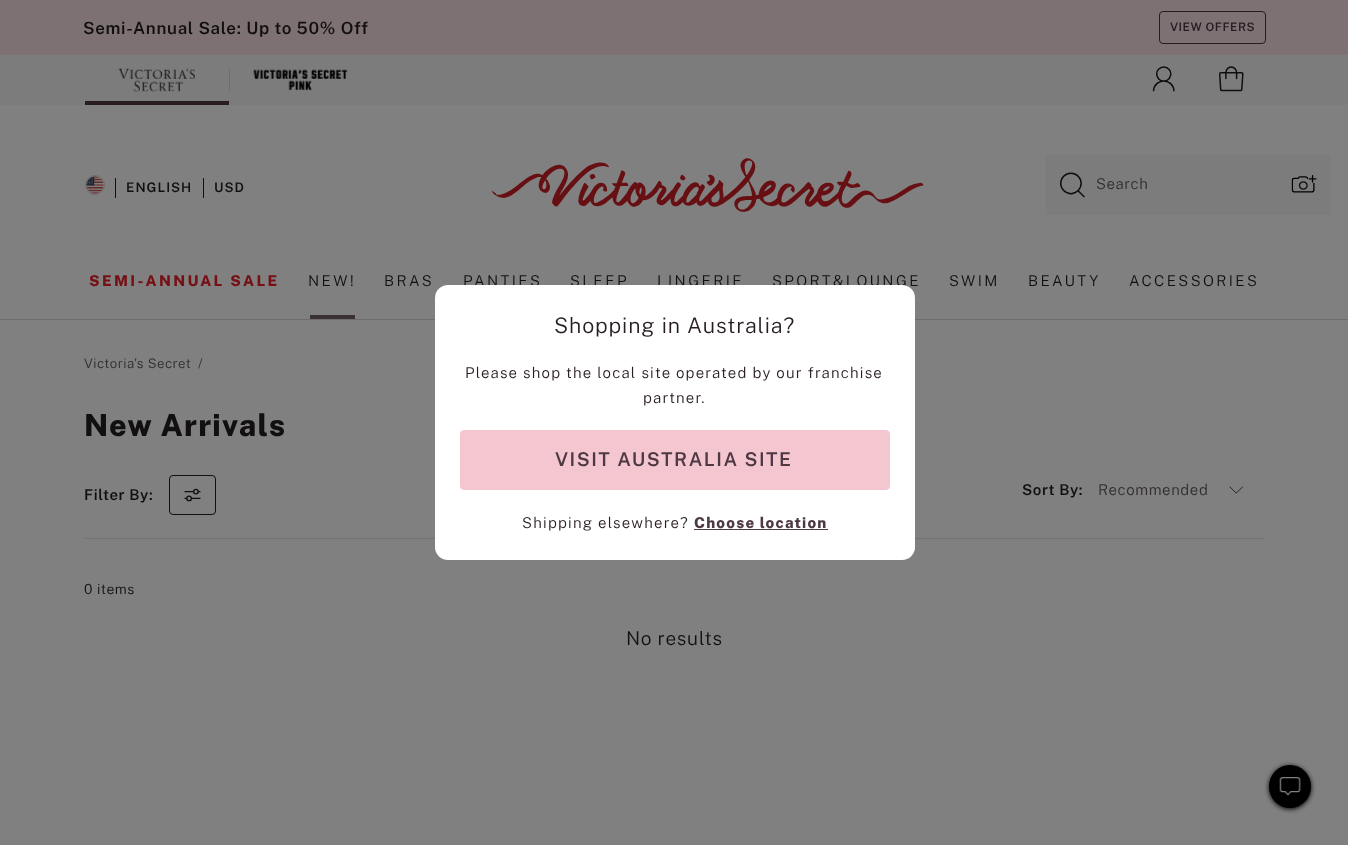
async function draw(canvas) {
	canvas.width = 1348;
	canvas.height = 845;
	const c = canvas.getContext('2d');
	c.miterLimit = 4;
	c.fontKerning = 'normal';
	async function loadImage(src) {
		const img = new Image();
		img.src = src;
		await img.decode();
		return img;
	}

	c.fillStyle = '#808080';
	c.fillRect(0, 0, 1348, 845);
	c.fillStyle = '#7d7c7d';
	c.fillRect(0, 55, 1348, 50);
	c.fillStyle = '#7d7174';
	c.fillRect(0, 0, 1348, 55);
	c.letterSpacing = '0.7px';
	c.font = '600 16.9px Public Sans';
	c.fillStyle = '#110f0f';
	c.fillText('Semi-Annual Sale: Up to 50% Off', 83, 34);
	c.beginPath();
	c.roundRect(1159.5, 11.5, 106, 32, 3.5);
	c.strokeStyle = '#271c22';
	c.stroke();
	c.letterSpacing = '0.5px';
	c.font = '600 11.75px Public Sans';
	c.fillStyle = '#271c22';
	c.fillText('VIEW OFFERS', 1170, 31);
	c.fillRect(85, 101, 144, 4);
	c.drawImage(await loadImage('img1.png'), 118, 68, 77, 24);
	c.fillStyle = '#706d6b';
	c.fillRect(229, 69, 1, 22);
	c.drawImage(await loadImage('img2.png'), 253, 69, 95, 22);
	c.drawImage(await loadImage('img3.png'), 1152, 66, 23, 26);
	c.drawImage(await loadImage('img4.png'), 1219, 66, 25, 26);
	c.beginPath();
	c.arc(95, 185, 9.5, 0, 2 * Math.PI);
	c.strokeStyle = '#706d6b';
	c.stroke();
	c.drawImage(await loadImage('img5.png'), 86, 176, 18, 18);
	c.fillStyle = '#110f0f';
	c.fillRect(115, 178, 1, 20);
	c.letterSpacing = '1px';
	c.font = '600 13.25px Public Sans';
	c.fillText('ENGLISH', 126, 192);
	c.fillRect(203, 178, 1, 20);
	c.fillText('USD', 214, 192);
	c.drawImage(await loadImage('img6.png'), 491, 158, 433, 54);
	c.fillStyle = '#7d7c7d';
	c.beginPath();
	c.roundRect(1046, 155, 285, 60, 2.5);
	c.fill();
	c.drawImage(await loadImage('img7.png'), 1060, 172, 25, 26);
	c.letterSpacing = '0.6px';
	c.font = '300 15px Public Sans';
	c.fillStyle = '#302c2c';
	c.fillText('Search', 1096, 189);
	c.drawImage(await loadImage('img8.png'), 1291, 175, 26, 18);
	c.letterSpacing = '2.4px';
	c.font = '800 15px Public Sans';
	c.fillStyle = '#761014';
	c.fillText('SEMI-ANNUAL SALE', 89, 286);
	c.font = '300 15px Public Sans';
	c.fillStyle = '#110f0f';
	c.fillText('NEW!', 308, 286);
	c.fillStyle = '#393035';
	c.fillRect(310, 315, 45, 4);
	c.fillStyle = '#110f0f';
	for (const [text, x, y] of [
		['BRAS', 384, 286],
		['PANTIES', 463, 286],
		['SLEEP', 570, 286],
		['LINGERIE', 657, 286],
		['SPORT&LOUNGE', 772, 286],
		['SWIM', 949, 286],
		['BEAUTY', 1028, 286],
		['ACCESSORIES', 1129, 286],
	]) {
		c.fillText(text, x, y);
	}
	c.fillStyle = '#706d6b';
	c.fillRect(0, 319, 1348, 1);
	c.letterSpacing = '0.5px';
	c.font = '300 13.25px Public Sans';
	c.fillStyle = '#302c2c';
	c.fillText('Victoria\'s Secret', 84, 368);
	c.fillText('/', 198, 368);
	c.letterSpacing = '1.25px';
	c.font = '800 30.5px Public Sans';
	c.fillStyle = '#110f0f';
	c.fillText('New Arrivals', 84, 436);
	c.fillStyle = '#747270';
	c.fillRect(85, 538, 1180, 1);
	c.letterSpacing = '0.6px';
	c.font = '600 15px Public Sans';
	c.fillStyle = '#110f0f';
	c.fillText('Filter By:', 84, 500);
	c.beginPath();
	c.roundRect(169.5, 475.5, 46, 39, 3.5);
	c.strokeStyle = '#110f0f';
	c.stroke();
	c.drawImage(await loadImage('img9.png'), 184, 488, 17, 14);
	c.fillText('Sort By:', 1022, 495);
	c.font = '300 15px Public Sans';
	c.fillStyle = '#302c2c';
	c.fillText('Recommended', 1098, 495);
	c.drawImage(await loadImage('img10.png'), 1229, 486, 15, 8);
	c.letterSpacing = '0.5px';
	c.font = '300 14px Public Sans';
	c.fillStyle = '#110f0f';
	c.fillText('0 items', 84, 594);
	c.letterSpacing = '0.75px';
	c.font = '300 19px Public Sans';
	c.fillText('No results', 626, 645);
	c.fillStyle = '#000';
	c.filter = 'blur(2.5px)';
	c.beginPath();
	c.roundRect(1269, 766, 42, 43, 21);
	c.fill();
	c.filter = 'none';
	c.beginPath();
	c.roundRect(1269, 765, 42, 43, 21);
	c.fill();
	c.drawImage(await loadImage('img11.png'), 1279, 777, 22, 19);
	c.fillStyle = '#fff';
	c.beginPath();
	c.roundRect(435, 285, 480, 275, 13);
	c.fill();
	c.letterSpacing = '0.85px';
	c.font = '300 21.4px Public Sans';
	c.fillStyle = '#271c22';
	c.fillText('Shopping in Australia?', 554, 333);
	c.letterSpacing = '1.2px';
	c.font = '300 15px Public Sans';
	c.fillText('Please shop the local site operated by our franchise', 465, 378);
	c.fillText('partner.', 643, 403);
	c.fillStyle = '#f4c6cf';
	c.beginPath();
	c.roundRect(460.5, 430.5, 429, 59, 3.5);
	c.fill();
	c.strokeStyle = '#f4c6cf';
	c.stroke();
	c.letterSpacing = '1.5px';
	c.font = '600 19px Public Sans';
	c.fillStyle = '#4e3844';
	c.fillText('VISIT AUSTRALIA SITE', 555, 466);
	c.letterSpacing = '1.2px';
	c.font = '300 15px Public Sans';
	c.fillStyle = '#271c22';
	c.fillText('Shipping elsewhere?', 522, 528);
	c.font = '800 15px Public Sans';
	c.fillStyle = '#4e3844';
	c.fillText('Choose location', 694, 528);
	c.fillRect(694, 529, 134, 1);
}

draw(document.querySelector('canvas'));
